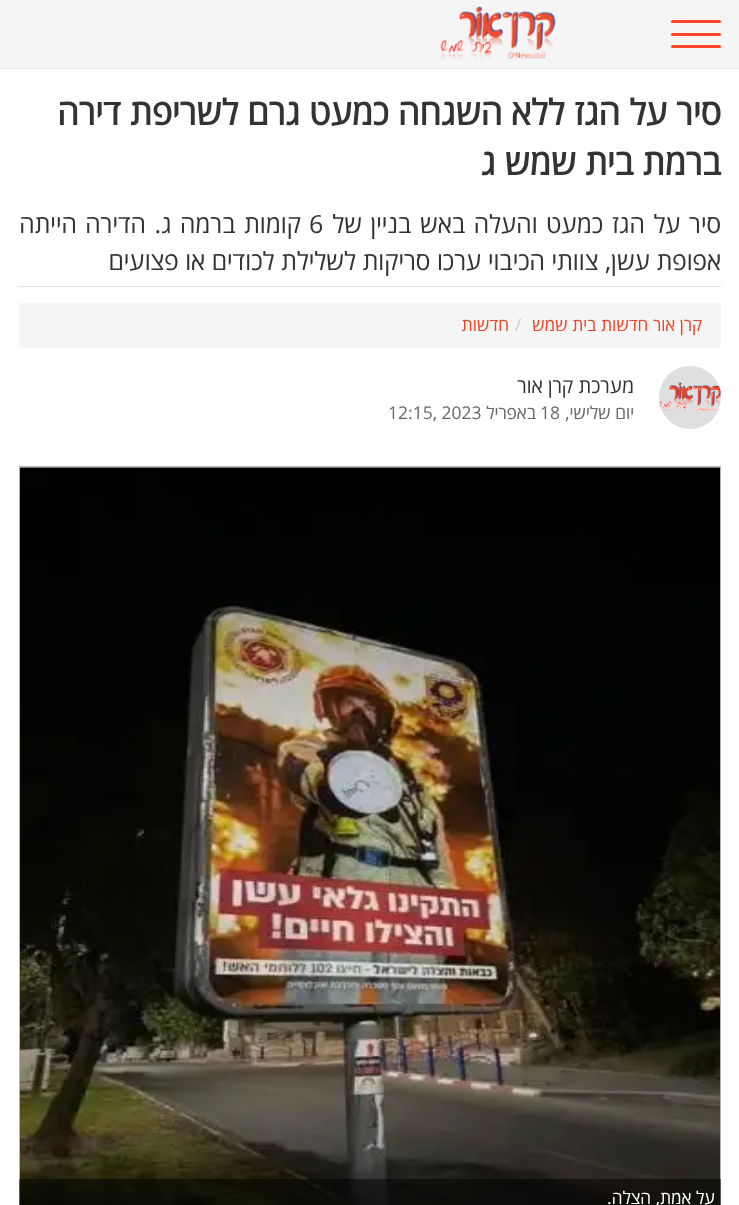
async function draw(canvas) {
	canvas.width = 739;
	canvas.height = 1205;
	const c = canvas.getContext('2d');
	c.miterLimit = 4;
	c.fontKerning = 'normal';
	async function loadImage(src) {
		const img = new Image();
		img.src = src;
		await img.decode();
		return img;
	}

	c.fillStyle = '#fff';
	c.fillRect(0, 0, 739, 1205);
	c.fillStyle = '#f5f5f5';
	c.fillRect(0, 0, 739, 68);
	c.fillStyle = '#eae9e9';
	c.fillRect(0, 68, 739, 1);
	c.fillStyle = '#fe4527';
	c.beginPath();
	c.roundRect(671, 33, 50, 3, 1.5);
	c.fill();
	c.beginPath();
	c.roundRect(671, 20, 50, 3, 1.5);
	c.fill();
	c.beginPath();
	c.roundRect(671, 45, 50, 3, 1.5);
	c.fill();
	c.drawImage(await loadImage('img1.png'), 440, 6, 116, 54);
	c.direction = 'rtl';
	c.font = 'bold 35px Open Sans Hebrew';
	c.fillStyle = '#333';
	c.fillText('סיר על הגז ללא השגחה כמעט גרם לשריפת דירה', 721, 125);
	c.fillText('ברמת בית שמש ג', 721, 175);
	c.fillStyle = '#dfdfdf';
	c.fillRect(19, 286, 702, 1);
	c.wordSpacing = '2px';
	c.font = '25px Open Sans Hebrew';
	c.fillStyle = '#333';
	c.fillText('סיר על הגז כמעט והעלה באש בניין של', 721, 233);
	c.wordSpacing = '0px';
	c.direction = 'ltr';
	c.fillText('6', 309, 233);
	c.wordSpacing = '2px';
	c.direction = 'rtl';
	c.fillText('קומות ברמה ג. הדירה הייתה', 301, 233);
	c.wordSpacing = '0px';
	c.fillText('אפופת עשן, צוותי הכיבוי ערכו סריקות לשלילת לכודים או פצועים', 721, 270);
	c.fillStyle = '#f5f5f5';
	c.beginPath();
	c.roundRect(19, 303, 702, 45, [0, 0, 5, 5]);
	c.fill();
	c.font = '17.5px Open Sans Hebrew';
	c.fillStyle = '#ef4324';
	c.fillText('קרן אור חדשות בית שמש', 702, 331);
	c.direction = 'ltr';
	c.fillStyle = '#ccc';
	c.fillText('/', 515, 331);
	c.direction = 'rtl';
	c.fillStyle = '#ef4324';
	c.fillText('חדשות', 509, 331);
	c.fillStyle = '#dfdfdf';
	c.beginPath();
	c.roundRect(659, 366, 62, 63, 31);
	c.fill();
	c.drawImage(await loadImage('img2.png'), 659, 382, 62, 30);
	c.font = '20px Open Sans Hebrew';
	c.fillStyle = '#333';
	c.fillText('מערכת קרן אור', 634, 393);
	c.font = '17.5px Open Sans Hebrew';
	c.fillStyle = '#676767';
	c.fillText('יום שלישי,', 634, 419);
	c.direction = 'ltr';
	c.fillText('18', 540, 419);
	c.direction = 'rtl';
	c.fillText('באפריל', 536, 419);
	c.direction = 'ltr';
	c.fillText('12:15, 2023', 388, 419);
	c.strokeStyle = '#b4b4b4';
	c.strokeRect(19.5, 466.5, 701, 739);
	c.drawImage(await loadImage('img3.png'), 20, 467, 700, 738);
	c.fillStyle = '#00000080';
	c.fillRect(19, 1179, 702, 26);
	c.direction = 'rtl';
	c.fillStyle = '#fff';
	c.fillText('על אמת, הצלה.', 715, 1204);
}

draw(document.querySelector('canvas'));
